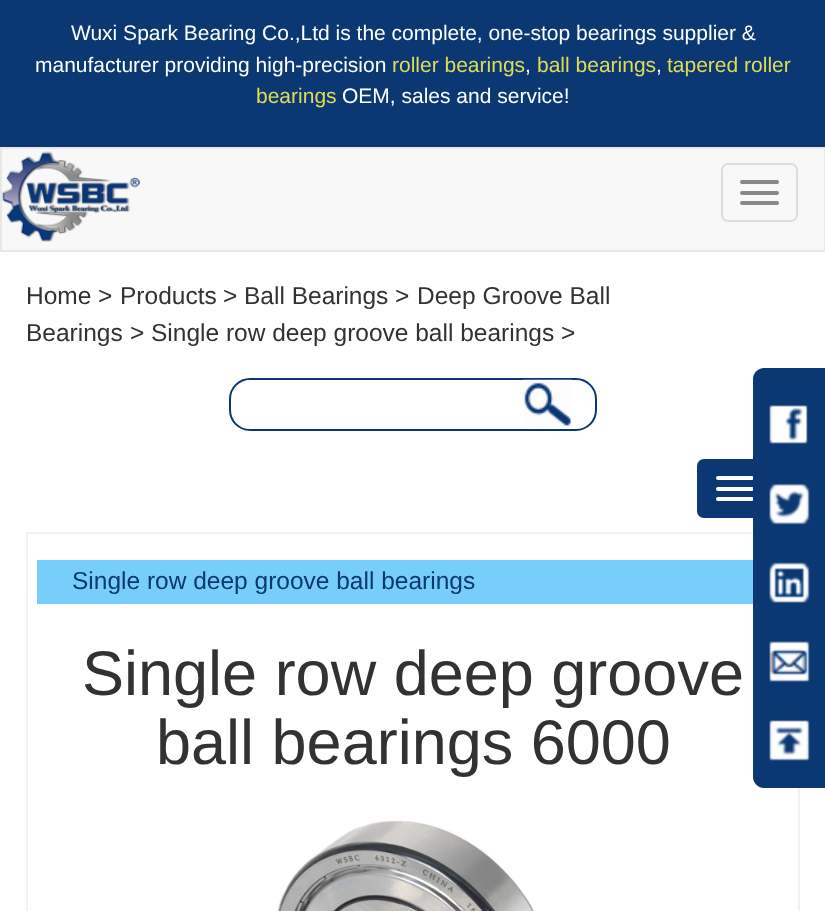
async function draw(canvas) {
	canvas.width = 825;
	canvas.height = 911;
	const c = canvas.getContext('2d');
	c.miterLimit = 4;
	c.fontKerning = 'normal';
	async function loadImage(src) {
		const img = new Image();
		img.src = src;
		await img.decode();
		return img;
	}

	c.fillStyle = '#fff';
	c.fillRect(0, 0, 825, 911);
	c.fillStyle = '#0b3873';
	c.fillRect(0, 0, 825, 147);
	c.font = '21px Liberation Sans';
	c.fillStyle = '#fff';
	c.fillText('Wuxi Spark Bearing Co.,Ltd is the complete, one-stop bearings supplier &', 71, 40);
	c.fillText('manufacturer providing high-precision', 35, 72);
	c.fillStyle = '#dfdb58';
	c.fillText('roller bearings', 392, 72);
	c.fillStyle = '#fff';
	c.fillText(',', 525, 72);
	c.fillStyle = '#dfdb58';
	c.fillText('ball bearings', 537, 72);
	c.fillStyle = '#fff';
	c.fillText(',', 656, 72);
	c.fillStyle = '#dfdb58';
	c.fillText('tapered roller', 667, 72);
	c.fillText('bearings', 256, 103);
	c.fillStyle = '#fff';
	c.fillText('OEM, sales and service!', 342, 103);
	c.fillStyle = '#f8f8f8';
	c.beginPath();
	c.rect(1, 148, 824, 103);
	c.fill();
	c.strokeStyle = '#e7e7e7';
	c.lineWidth = 2;
	c.stroke();
	c.drawImage(await loadImage('img1.png'), 1, 151, 139, 91);
	c.beginPath();
	c.roundRect(722, 164, 75, 57, 6);
	c.strokeStyle = '#ddd';
	c.stroke();
	c.fillStyle = '#888';
	c.beginPath();
	c.roundRect(740, 180, 39, 4, 2);
	c.fill();
	c.beginPath();
	c.roundRect(740, 191, 39, 4, 2);
	c.fill();
	c.beginPath();
	c.roundRect(740, 201, 39, 4, 2);
	c.fill();
	c.font = '24.5px Liberation Sans';
	c.fillStyle = '#323232';
	for (const [text, x, y] of [
		['Home', 26, 304],
		['>', 98, 304],
		['Products', 120, 304],
		['>', 223, 304],
		['Ball Bearings', 244, 304],
		['>', 395, 304],
		['Deep Groove Ball', 417, 304],
		['Bearings', 26, 341],
		['>', 130, 341],
		['Single row deep groove ball bearings', 151, 341],
		['>', 561, 341],
	]) {
		c.fillText(text, x, y);
	}
	c.beginPath();
	c.roundRect(230, 379, 366, 51, 20);
	c.strokeStyle = '#0a3673';
	c.stroke();
	c.fillStyle = '#fff';
	c.fillRect(247, 380, 3, 1);
	c.drawImage(await loadImage('img2.png'), 523, 379, 50, 48);
	c.fillStyle = '#0b3873';
	c.beginPath();
	c.roundRect(697, 459, 77, 59, 7);
	c.fill();
	c.fillStyle = '#fff';
	c.beginPath();
	c.roundRect(716, 476, 38, 4, 2);
	c.fill();
	c.beginPath();
	c.roundRect(716, 487, 38, 4, 2);
	c.fill();
	c.beginPath();
	c.roundRect(716, 497, 38, 4, 2);
	c.fill();
	c.strokeStyle = '#eff2f9';
	c.strokeRect(27, 533, 772, 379);
	c.fillStyle = '#77cefb';
	c.fillRect(37, 560, 716, 44);
	c.fillStyle = '#0b3873';
	c.fillText('Single row deep groove ball bearings', 72, 589);
	c.font = '63px Liberation Sans';
	c.fillStyle = '#323232';
	c.fillText('Single row deep groove', 82, 695);
	c.fillText('ball bearings 6000', 156, 764);
	c.drawImage(await loadImage('img3.png'), 277, 820, 257, 91);
	c.fillStyle = '#0b3873';
	c.beginPath();
	c.moveTo(764, 368);
	c.lineTo(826, 368);
	c.lineTo(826, 788);
	c.lineTo(764, 788);
	c.bezierCurveTo(758, 788, 753, 783, 753, 777);
	c.lineTo(753, 379);
	c.bezierCurveTo(753, 373, 758, 368, 764, 368);
	c.closePath();
	c.fill();
	c.drawImage(await loadImage('img4.png'), 769, 405, 39, 39);
	c.drawImage(await loadImage('img5.png'), 769, 483, 41, 42);
	c.drawImage(await loadImage('img6.png'), 769, 562, 41, 41);
	c.drawImage(await loadImage('img7.png'), 769, 641, 41, 41);
	c.drawImage(await loadImage('img8.png'), 769, 720, 41, 41);
}

draw(document.querySelector('canvas'));
